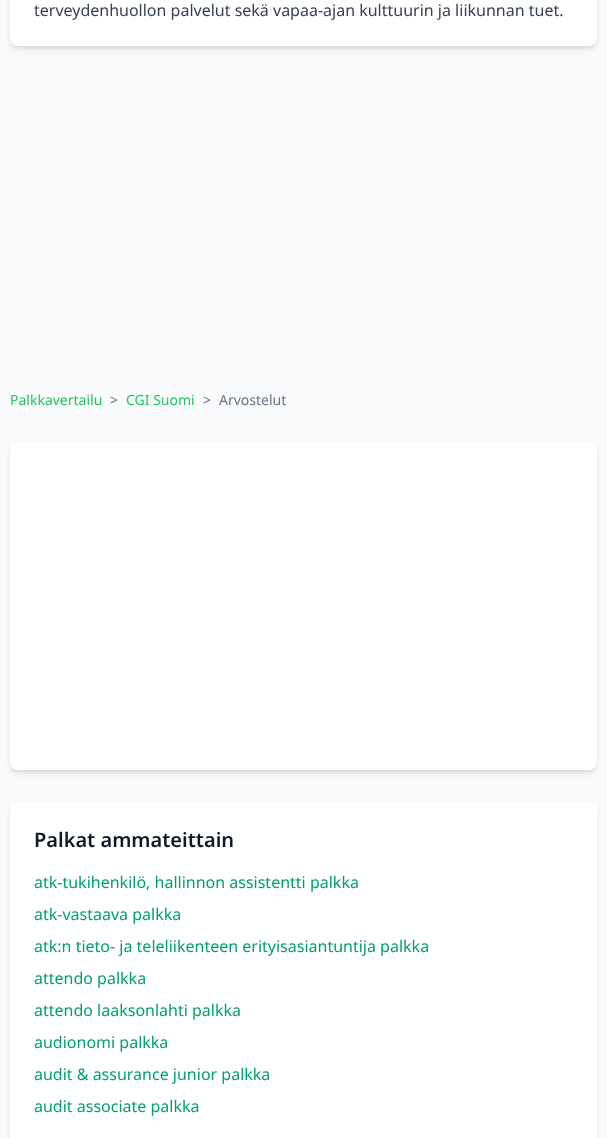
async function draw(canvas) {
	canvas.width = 607;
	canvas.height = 1138;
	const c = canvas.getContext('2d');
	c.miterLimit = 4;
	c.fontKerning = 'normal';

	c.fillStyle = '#f9fafb';
	c.fillRect(0, 0, 607, 1138);
	c.fillStyle = '#0000001a';
	c.filter = 'blur(2px)';
	c.beginPath();
	c.roundRect(12, -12, 583, 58, 6);
	c.fill();
	c.filter = 'none';
	c.filter = 'blur(3px)';
	c.beginPath();
	c.roundRect(11, -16, 585, 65, 7);
	c.fill();
	c.filter = 'none';
	c.fillStyle = '#fff';
	c.beginPath();
	c.roundRect(10, -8, 587, 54, 8);
	c.fill();
	c.font = '16px Noto Sans';
	c.fillStyle = '#374151';
	c.fillText('terveydenhuollon palvelut sekä vapaa-ajan kulttuurin ja liikunnan tuet.', 34, 16);
	c.font = '14px Noto Sans';
	c.fillStyle = '#22c55e';
	c.fillText('Palkkavertailu', 10, 405);
	c.fillStyle = '#6b7280';
	c.fillText('>', 110, 405);
	c.fillStyle = '#22c55e';
	c.fillText('CGI Suomi', 126, 405);
	c.fillStyle = '#6b7280';
	c.fillText('>', 203, 405);
	c.fillText('Arvostelut', 219, 405);
	c.fillStyle = '#0000001a';
	c.filter = 'blur(2px)';
	c.beginPath();
	c.roundRect(12, 446, 583, 324, 6);
	c.fill();
	c.filter = 'none';
	c.filter = 'blur(3px)';
	c.beginPath();
	c.roundRect(11, 447, 585, 326, 7);
	c.fill();
	c.filter = 'none';
	c.fillStyle = '#fff';
	c.beginPath();
	c.roundRect(10, 442, 587, 328, 8);
	c.fill();
	c.fillStyle = '#0000001a';
	c.filter = 'blur(3px)';
	c.beginPath();
	c.roundRect(11, 807, 585, 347, 7);
	c.fill();
	c.filter = 'none';
	c.fillStyle = '#fff';
	c.beginPath();
	c.roundRect(10, 802, 587, 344, 8);
	c.fill();
	c.font = '600 20px Noto Sans';
	c.fillStyle = '#111827';
	c.fillText('Palkat ammateittain', 34, 847);
	c.font = '16px Noto Sans';
	c.fillStyle = '#00a264';
	for (const [text, x, y] of [
		['atk-tukihenkilö, hallinnon assistentti palkka', 34, 888],
		['atk-vastaava palkka', 34, 920],
		['atk:n tieto- ja teleliikenteen erityisasiantuntija palkka', 34, 952],
		['attendo palkka', 34, 984],
		['attendo laaksonlahti palkka', 34, 1016],
		['audionomi palkka', 34, 1048],
		['audit & assurance junior palkka', 34, 1080],
		['audit associate palkka', 34, 1112],
	]) {
		c.fillText(text, x, y);
	}
}

draw(document.querySelector('canvas'));
